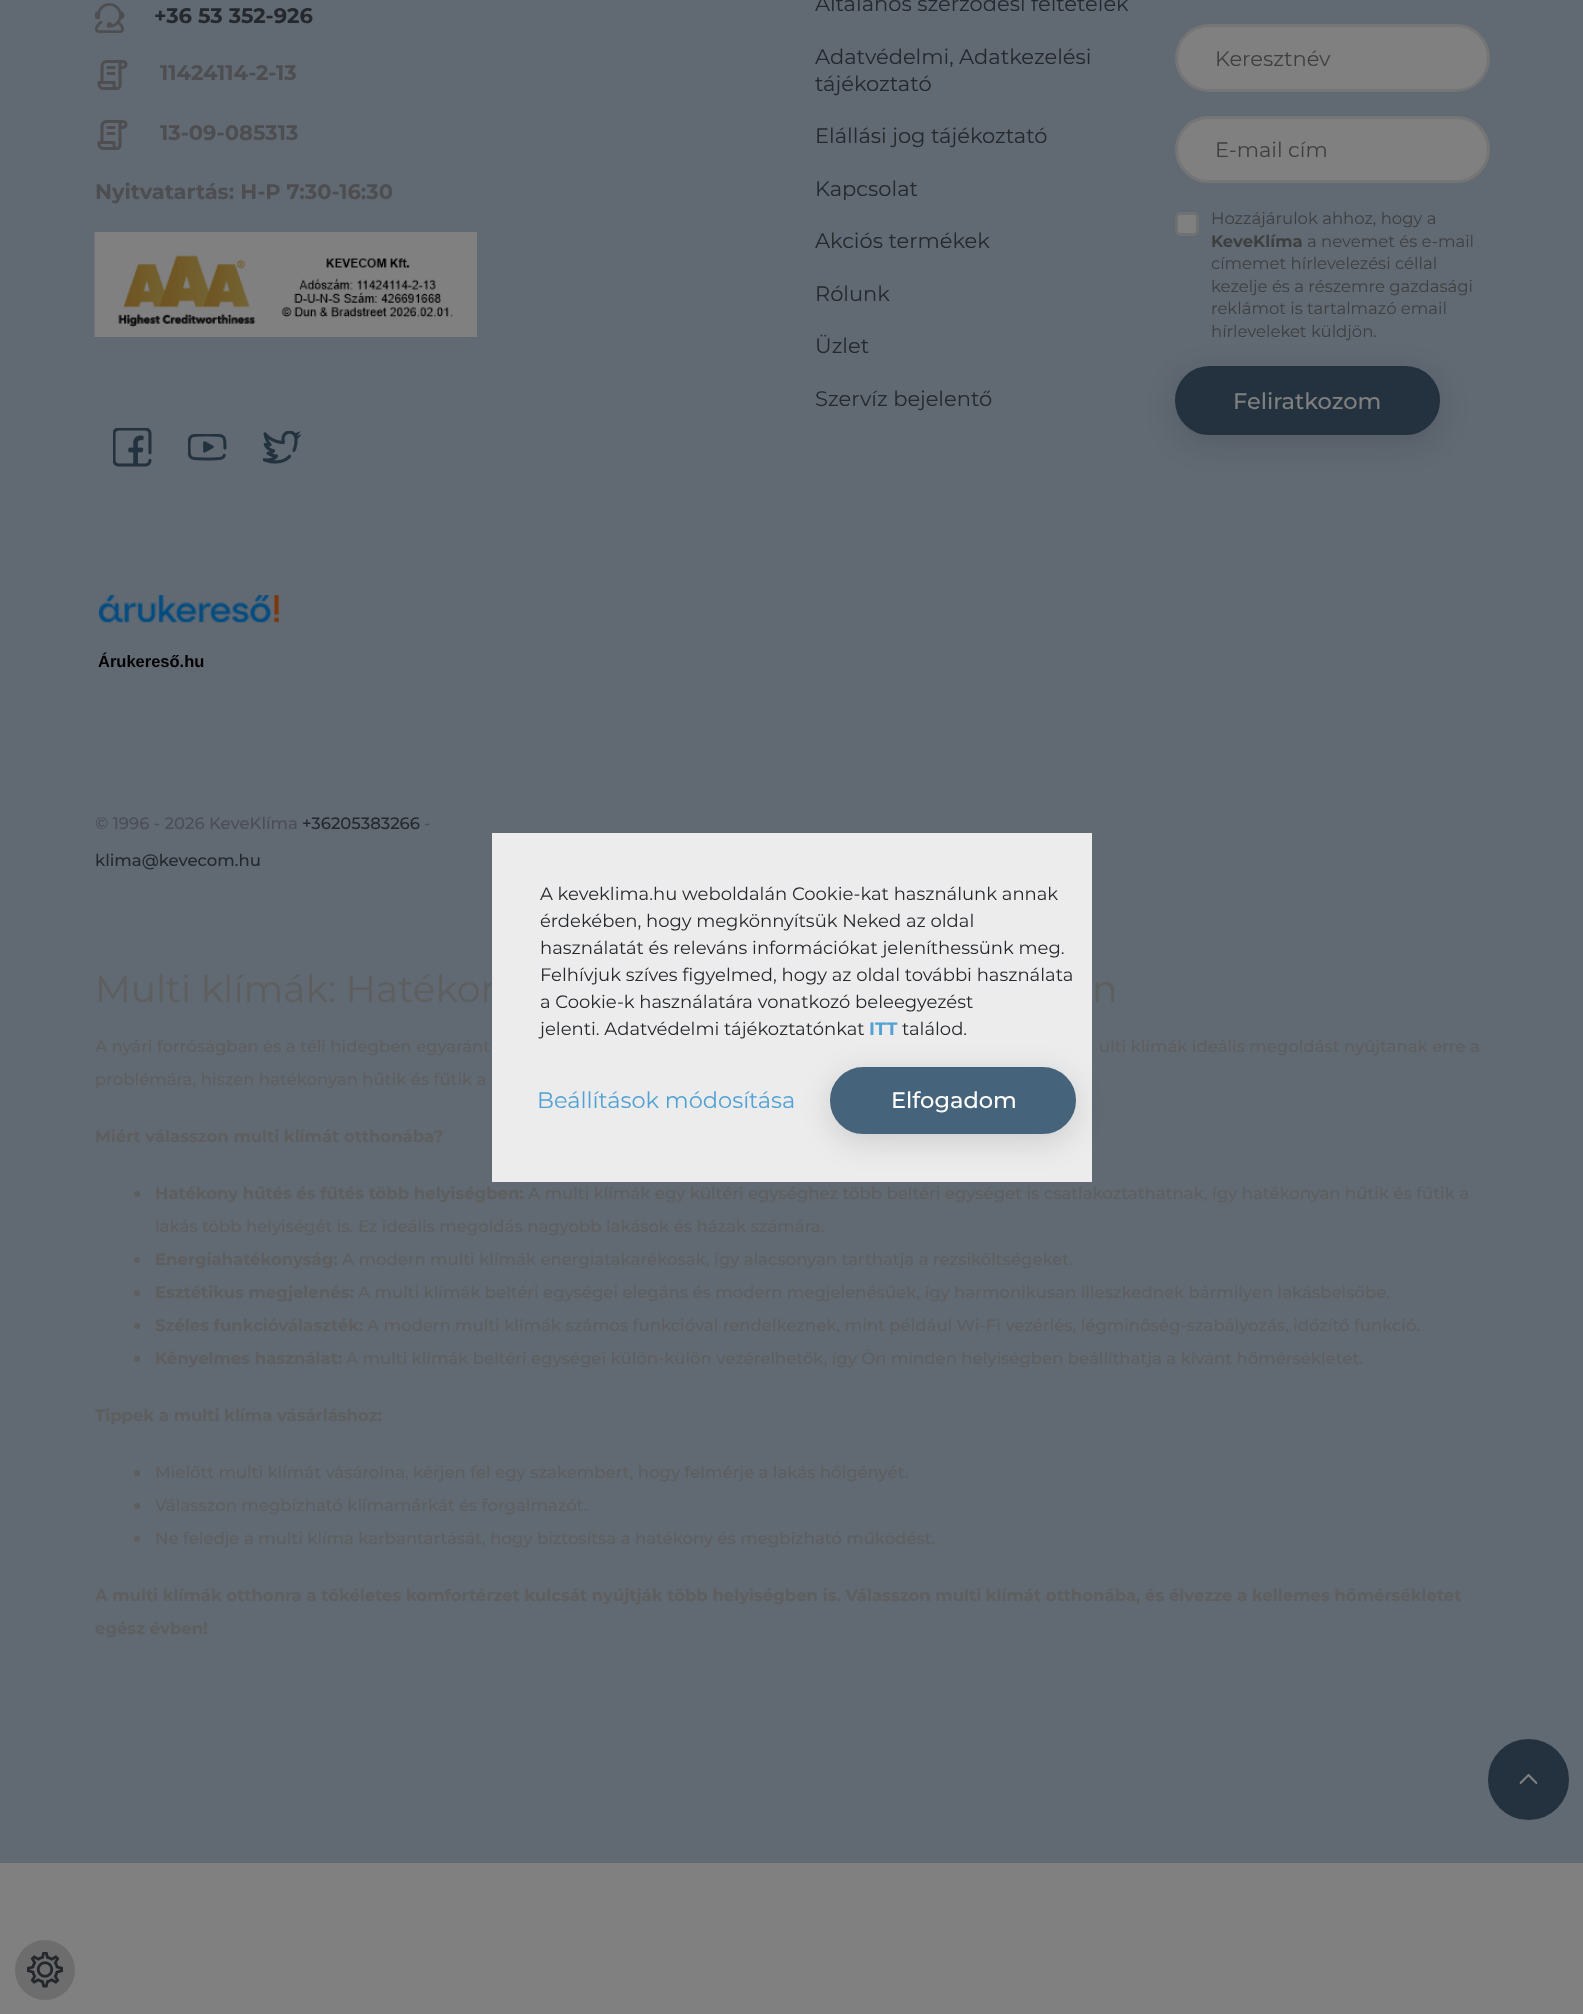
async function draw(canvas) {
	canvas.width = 1583;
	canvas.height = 2014;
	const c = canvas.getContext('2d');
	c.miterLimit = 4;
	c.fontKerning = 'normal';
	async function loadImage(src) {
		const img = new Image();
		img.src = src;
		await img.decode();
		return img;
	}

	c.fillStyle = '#808080';
	c.fillRect(0, 0, 1583, 2014);
	c.fillStyle = '#616973';
	c.fillRect(0, 0, 1583, 1863);
	c.drawImage(await loadImage('img1.png'), 95, 3, 30, 30);
	c.font = 'bold 21px Montserrat';
	c.fillStyle = '#25282c';
	c.fillText('+36 53 352-926', 154, 23);
	c.drawImage(await loadImage('img2.png'), 97, 60, 31, 30);
	c.fillStyle = '#4e4e50';
	c.fillText('11424114-2-13', 160, 80);
	c.drawImage(await loadImage('img2.png'), 97, 120, 31, 30);
	c.fillText('13-09-085313', 160, 140);
	c.fillText('Nyitvatartás: H-P 7:30-16:30', 95, 199);
	c.drawImage(await loadImage('img3.png'), 94, 232, 383, 105);
	c.drawImage(await loadImage('img4.png'), 113, 428, 39, 39);
	c.drawImage(await loadImage('img5.png'), 188, 434, 39, 27);
	c.drawImage(await loadImage('img6.png'), 263, 431, 39, 33);
	c.drawImage(await loadImage('img7.png'), 99, 595, 180, 28);
	c.font = 'bold 16.5px Liberation Sans';
	c.fillStyle = '#000';
	c.fillText('Árukereső.hu', 98, 667);
	c.font = '21px Montserrat';
	c.fillStyle = '#25282c';
	for (const [text, x, y] of [
		['Általános szerződési feltételek', 815, 11],
		['Adatvédelmi, Adatkezelési', 815, 64],
		['tájékoztató', 815, 91],
		['Elállási jog tájékoztató', 815, 143],
		['Kapcsolat', 815, 196],
		['Akciós termékek', 815, 248],
		['Rólunk', 815, 301],
		['Üzlet', 815, 353],
		['Szervíz bejelentő', 815, 406],
	]) {
		c.fillText(text, x, y);
	}
	c.fillStyle = '#808080';
	c.beginPath();
	c.roundRect(1176.5, 25.5, 312, 65, 32.5);
	c.fill();
	c.strokeStyle = '#757575';
	c.lineWidth = 3;
	c.stroke();
	c.fillStyle = '#3f3f3f';
	c.fillText('Keresztnév', 1215, 66);
	c.fillStyle = '#808080';
	c.beginPath();
	c.roundRect(1176.5, 117.5, 312, 64, 32);
	c.fill();
	c.stroke();
	c.fillStyle = '#3f3f3f';
	c.fillText('E-mail cím', 1215, 157);
	c.fillStyle = '#808080';
	c.beginPath();
	c.roundRect(1176.5, 213.5, 21, 21, 3.5);
	c.fill();
	c.strokeStyle = '#6f7173';
	c.stroke();
	c.font = '16.5px Montserrat';
	c.fillStyle = '#3f3f3f';
	c.fillText('Hozzájárulok ahhoz, hogy a', 1211, 224);
	c.font = 'bold 16.5px Montserrat';
	c.fillText('KeveKlíma', 1211, 247);
	c.font = '16.5px Montserrat';
	for (const [text, x, y] of [
		['a nevemet és e-mail', 1307, 247],
		['címemet hírlevelezési céllal', 1211, 269],
		['kezelje és a részemre gazdasági', 1211, 292],
		['reklámot is tartalmazó email', 1211, 314],
	]) {
		c.fillText(text, x, y);
	}
	c.fillStyle = '#10101626';
	c.filter = 'blur(15px)';
	c.beginPath();
	c.roundRect(1175, 374, 265, 69, 34.5);
	c.fill();
	c.filter = 'none';
	c.fillStyle = '#3f3f3f';
	c.fillText('hírleveleket küldjön.', 1211, 337);
	c.fillStyle = '#23323e';
	c.beginPath();
	c.roundRect(1176, 367, 263, 67, 33.5);
	c.fill();
	c.strokeStyle = '#23323e';
	c.lineWidth = 2;
	c.stroke();
	c.font = '500 22.5px Montserrat';
	c.fillStyle = '#808080';
	c.fillText('Feliratkozom', 1233, 409);
	c.font = '500 16.5px Montserrat';
	c.fillStyle = '#4d4d56';
	c.fillText('© 1996 - 2026 KeveKlíma', 95, 829);
	c.fillStyle = '#25282c';
	c.fillText('+36205383266', 302, 829);
	c.fillStyle = '#4d4d56';
	c.fillText('-', 424, 829);
	c.fillStyle = '#25282c';
	c.fillText('klima@kevecom.hu', 95, 866);
	c.font = '37.5px Montserrat';
	c.fillStyle = '#5e5e5e';
	c.fillText('Multi klímák: Hatékon', 95, 1002);
	c.fillText('n', 1092, 1002);
	c.font = '500 16.5px Montserrat';
	for (const [text, x, y] of [
		['A nyári forróságban és a téli hidegben egyaránt', 95, 1052],
		['ulti klímák ideális megoldást nyújtanak erre a', 1099, 1052],
		['problémára, hiszen hatékonyan hűtik és fűtik a', 95, 1085],
	]) {
		c.fillText(text, x, y);
	}
	c.font = 'bold 16.5px Montserrat';
	c.fillText('Miért válasszon multi klímát otthonába?', 95, 1142);
	c.beginPath();
	c.arc(137, 1194, 3, 0, 2 * Math.PI);
	c.fill();
	c.fillText('Hatékony hűtés és fűtés több helyiségben:', 155, 1199);
	c.font = '500 16.5px Montserrat';
	c.fillText('A multi klímák egy kültéri egységhez több beltéri egységet is csatlakoztathatnak, így hatékonyan hűtik és fűtik a', 528, 1199);
	c.fillText('lakás több helyiségét is. Ez ideális megoldás nagyobb lakások és házak számára.', 155, 1232);
	c.beginPath();
	c.arc(137, 1260, 3, 0, 2 * Math.PI);
	c.fill();
	c.font = 'bold 16.5px Montserrat';
	c.fillText('Energiahatékonyság:', 155, 1265);
	c.font = '500 16.5px Montserrat';
	c.fillText('A modern multi klímák energiatakarékosak, így alacsonyan tarthatja a rezsiköltségeket.', 342, 1265);
	c.beginPath();
	c.arc(137, 1293, 3, 0, 2 * Math.PI);
	c.fill();
	c.font = 'bold 16.5px Montserrat';
	c.fillText('Esztétikus megjelenés:', 155, 1298);
	c.font = '500 16.5px Montserrat';
	c.fillText('A multi klímák beltéri egységei elegáns és modern megjelenésűek, így harmonikusan illeszkednek bármilyen lakásbelsőbe.', 358, 1298);
	c.beginPath();
	c.arc(137, 1326, 3, 0, 2 * Math.PI);
	c.fill();
	c.font = 'bold 16.5px Montserrat';
	c.fillText('Széles funkcióválaszték:', 155, 1331);
	c.font = '500 16.5px Montserrat';
	c.fillText('A modern multi klímák számos funkcióval rendelkeznek, mint például Wi-Fi vezérlés, légminőség-szabályozás, időzítő funkció.', 367, 1331);
	c.beginPath();
	c.arc(137, 1359, 3, 0, 2 * Math.PI);
	c.fill();
	c.font = 'bold 16.5px Montserrat';
	c.fillText('Kényelmes használat:', 155, 1364);
	c.font = '500 16.5px Montserrat';
	c.fillText('A multi klímák beltéri egységei külön-külön vezérelhetők, így Ön minden helyiségben beállíthatja a kívánt hőmérsékletet.', 346, 1364);
	c.font = 'bold 16.5px Montserrat';
	c.fillText('Tippek a multi klíma vásárláshoz:', 95, 1421);
	c.beginPath();
	c.arc(137, 1473, 3, 0, 2 * Math.PI);
	c.fill();
	c.font = '500 16.5px Montserrat';
	c.fillText('Mielőtt multi klímát vásárolna, kérjen fel egy szakembert, hogy felmérje a lakás hőigényét.', 155, 1478);
	c.beginPath();
	c.arc(137, 1506, 3, 0, 2 * Math.PI);
	c.fill();
	c.fillText('Válasszon megbízható klímamárkát és forgalmazót.', 155, 1511);
	c.beginPath();
	c.arc(137, 1539, 3, 0, 2 * Math.PI);
	c.fill();
	c.fillText('Ne feledje a multi klíma karbantartását, hogy biztosítsa a hatékony és megbízható működést.', 155, 1544);
	c.font = 'bold 16.5px Montserrat';
	c.fillText('A multi klímák otthonra a tökéletes komfortérzet kulcsát nyújtják több helyiségben is. Válasszon multi klímát otthonába, és élvezze a kellemes hőmérsékletet', 95, 1601);
	c.fillText('egész évben!', 95, 1634);
	c.fillStyle = '#23323e';
	c.beginPath();
	c.arc(1528.5, 1779.5, 39.5, 0, 2 * Math.PI);
	c.fill();
	c.stroke();
	c.drawImage(await loadImage('img8.png'), 1519, 1774, 19, 11);
	c.fillStyle = '#6d6d6d';
	c.beginPath();
	c.arc(45, 1970, 30, 0, 2 * Math.PI);
	c.fill();
	c.drawImage(await loadImage('img9.png'), 27, 1952, 36, 36);
	c.fillStyle = '#ececec';
	c.fillRect(492, 833, 600, 349);
	c.font = '18px Montserrat';
	c.fillStyle = '#25282c';
	for (const [text, x, y] of [
		['A keveklima.hu weboldalán Cookie-kat használunk annak', 540, 900],
		['érdekében, hogy megkönnyítsük Neked az oldal', 540, 927],
		['használatát és releváns információkat jeleníthessünk meg.', 540, 954],
		['Felhívjuk szíves figyelmed, hogy az oldal további használata', 540, 981],
		['a Cookie-k használatára vonatkozó beleegyezést', 540, 1008],
		['jelenti. Adatvédelmi tájékoztatónkat', 540, 1035],
	]) {
		c.fillText(text, x, y);
	}
	c.font = 'bold 18px Montserrat';
	c.fillStyle = '#51a1d6';
	c.fillText('ITT', 869, 1035);
	c.font = '18px Montserrat';
	c.fillStyle = '#25282c';
	c.fillText('találod.', 902, 1035);
	c.font = '22.5px Montserrat';
	c.fillStyle = '#51a1d6';
	c.fillText('Beállítások módosítása', 537, 1108);
	c.fillStyle = '#20202c26';
	c.filter = 'blur(15px)';
	c.beginPath();
	c.roundRect(830, 1074, 246, 68, 34);
	c.fill();
	c.filter = 'none';
	c.fillStyle = '#45637b';
	c.beginPath();
	c.roundRect(831, 1068, 244, 65, 32.5);
	c.fill();
	c.strokeStyle = '#45637b';
	c.stroke();
	c.font = '500 22.5px Montserrat';
	c.fillStyle = '#fff';
	c.fillText('Elfogadom', 891, 1108);
}

draw(document.querySelector('canvas'));
